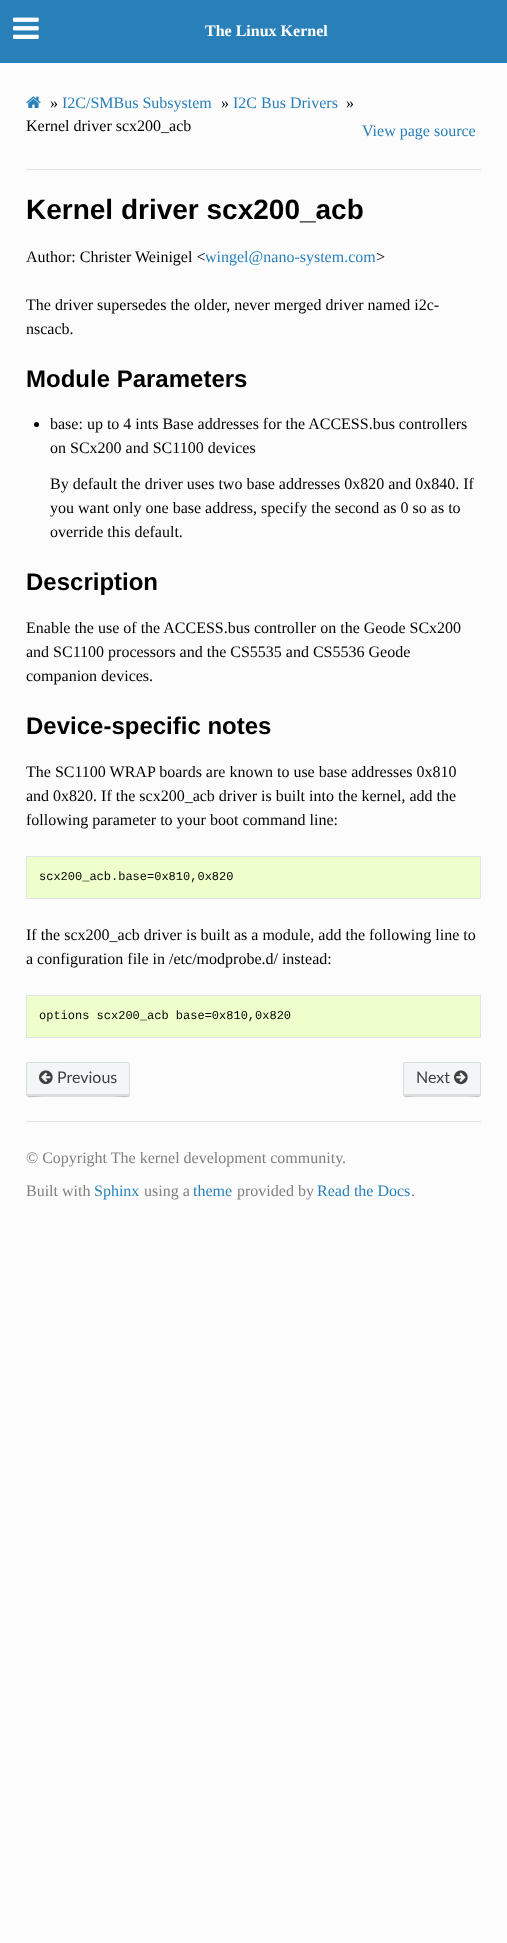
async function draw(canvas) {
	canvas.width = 507;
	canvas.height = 1943;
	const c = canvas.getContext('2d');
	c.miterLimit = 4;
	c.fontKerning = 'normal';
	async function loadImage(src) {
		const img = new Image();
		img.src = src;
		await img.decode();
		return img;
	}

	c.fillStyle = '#fcfcfc';
	c.fillRect(0, 0, 507, 1943);
	c.fillStyle = '#2980b9';
	c.fillRect(0, 0, 507, 63);
	c.drawImage(await loadImage('img1.png'), 13, 17, 26, 22);
	c.font = 'bold 16px Liberation Serif';
	c.fillStyle = '#fff';
	c.fillText('The Linux Kernel', 205, 36);
	c.drawImage(await loadImage('img2.png'), 26, 96, 15, 12);
	c.font = '16px Liberation Serif';
	c.fillStyle = '#000';
	c.fillText('»', 50, 108);
	c.fillStyle = '#2980b9';
	c.fillText('I2C/SMBus Subsystem', 62, 108);
	c.fillStyle = '#000';
	c.fillText('»', 221, 108);
	c.fillStyle = '#2980b9';
	c.fillText('I2C Bus Drivers', 233, 108);
	c.fillStyle = '#000';
	c.fillText('»', 346, 108);
	c.fillText('Kernel driver scx200_acb', 26, 131);
	c.fillStyle = '#2980b9';
	c.fillText('View page source', 362, 136);
	c.fillStyle = '#e1e4e5';
	c.fillRect(26, 169, 455, 1);
	c.font = 'bold 28px Liberation Sans';
	c.fillStyle = '#000';
	c.fillText('Kernel driver scx200_acb', 26, 219);
	c.font = '16px Liberation Serif';
	c.fillText('Author: Christer Weinigel <', 26, 262);
	c.fillStyle = '#2980b9';
	c.fillText('wingel@nano-system.com', 205, 262);
	c.fillStyle = '#000';
	for (const [text, x, y] of [
		['>', 376, 262],
		['The driver supersedes the older, never merged driver named i2c-', 26, 310],
		['nscacb.', 26, 334],
	]) {
		c.fillText(text, x, y);
	}
	c.font = 'bold 24px Liberation Sans';
	c.fillText('Module Parameters', 26, 387);
	c.beginPath();
	c.arc(36.5, 424.5, 2.5, 0, 2 * Math.PI);
	c.fill();
	c.font = '16px Liberation Serif';
	for (const [text, x, y] of [
		['base: up to 4 ints Base addresses for the ACCESS.bus controllers', 50, 429],
		['on SCx200 and SC1100 devices', 50, 453],
		['By default the driver uses two base addresses 0x820 and 0x840. If', 50, 489],
		['you want only one base address, specify the second as 0 so as to', 50, 513],
		['override this default.', 50, 537],
	]) {
		c.fillText(text, x, y);
	}
	c.font = 'bold 24px Liberation Sans';
	c.fillText('Description', 26, 590);
	c.font = '16px Liberation Serif';
	for (const [text, x, y] of [
		['Enable the use of the ACCESS.bus controller on the Geode SCx200', 26, 633],
		['and SC1100 processors and the CS5535 and CS5536 Geode', 26, 657],
		['companion devices.', 26, 681],
	]) {
		c.fillText(text, x, y);
	}
	c.font = 'bold 24px Liberation Sans';
	c.fillText('Device-specific notes', 26, 734);
	c.font = '16px Liberation Serif';
	for (const [text, x, y] of [
		['The SC1100 WRAP boards are known to use base addresses 0x810', 26, 777],
		['and 0x820. If the scx200_acb driver is built into the kernel, add the', 26, 801],
		['following parameter to your boot command line:', 26, 825],
	]) {
		c.fillText(text, x, y);
	}
	c.strokeStyle = '#e1e4e5';
	c.strokeRect(26.5, 856.5, 454, 42);
	c.fillStyle = '#efc';
	c.fillRect(27, 857, 453, 41);
	c.font = '12px Liberation Mono';
	c.fillStyle = '#000';
	c.fillText('scx200_acb.base=0x810,0x820', 39, 880);
	c.font = '16px Liberation Serif';
	c.fillText('If the scx200_acb driver is built as a module, add the following line to', 26, 940);
	c.fillText('a configuration file in /etc/modprobe.d/ instead:', 26, 964);
	c.strokeRect(26.5, 995.5, 454, 42);
	c.fillStyle = '#efc';
	c.fillRect(27, 996, 453, 41);
	c.font = '12px Liberation Mono';
	c.fillStyle = '#000';
	c.fillText('options scx200_acb base=0x810,0x820', 39, 1019);
	c.fillStyle = '#f3f6f6';
	c.beginPath();
	c.roundRect(26, 1062, 104, 35, 2);
	c.fill();
	c.fillStyle = '#dbdddd';
	c.beginPath();
	c.moveTo(27, 1093);
	c.bezierCurveTo(27, 1101, 35, 1096, 45, 1096);
	c.lineTo(111, 1096);
	c.bezierCurveTo(121, 1096, 129, 1101, 129, 1093);
	c.bezierCurveTo(129, 1094, 129, 1094, 128, 1094);
	c.lineTo(28, 1094);
	c.bezierCurveTo(27, 1094, 27, 1094, 27, 1093);
	c.closePath();
	c.fill();
	c.beginPath();
	c.roundRect(26.5, 1062.5, 103, 34, 1.5);
	c.strokeStyle = '#0000001a';
	c.stroke();
	c.drawImage(await loadImage('img3.png'), 39, 1070, 14, 15);
	c.font = '16px Lato';
	c.fillStyle = '#404040';
	c.fillText('Previous', 57, 1083);
	c.fillStyle = '#f3f6f6';
	c.beginPath();
	c.roundRect(403, 1062, 78, 35, 2);
	c.fill();
	c.fillStyle = '#dbdddd';
	c.beginPath();
	c.moveTo(404, 1093);
	c.bezierCurveTo(404, 1100, 409, 1096, 417, 1096);
	c.lineTo(467, 1096);
	c.bezierCurveTo(475, 1096, 480, 1100, 480, 1093);
	c.bezierCurveTo(480, 1094, 480, 1094, 479, 1094);
	c.lineTo(404, 1094);
	c.closePath();
	c.fill();
	c.beginPath();
	c.roundRect(403.5, 1062.5, 77, 34, 1.5);
	c.stroke();
	c.fillStyle = '#404040';
	c.fillText('Next', 416, 1083);
	c.drawImage(await loadImage('img4.png'), 454, 1070, 14, 15);
	c.fillStyle = '#e1e4e5';
	c.fillRect(26, 1121, 455, 1);
	c.font = '16px Liberation Serif';
	c.fillStyle = '#808080';
	c.fillText('© Copyright The kernel development community.', 26, 1163);
	c.fillText('Built with', 26, 1196);
	c.fillStyle = '#2980b9';
	c.fillText('Sphinx', 94, 1196);
	c.fillStyle = '#808080';
	c.fillText('using a', 144, 1196);
	c.fillStyle = '#2980b9';
	c.fillText('theme', 193, 1196);
	c.fillStyle = '#808080';
	c.fillText('provided by', 237, 1196);
	c.fillStyle = '#2980b9';
	c.fillText('Read the Docs', 317, 1196);
	c.fillStyle = '#808080';
	c.fillText('.', 411, 1196);
}

draw(document.querySelector('canvas'));
